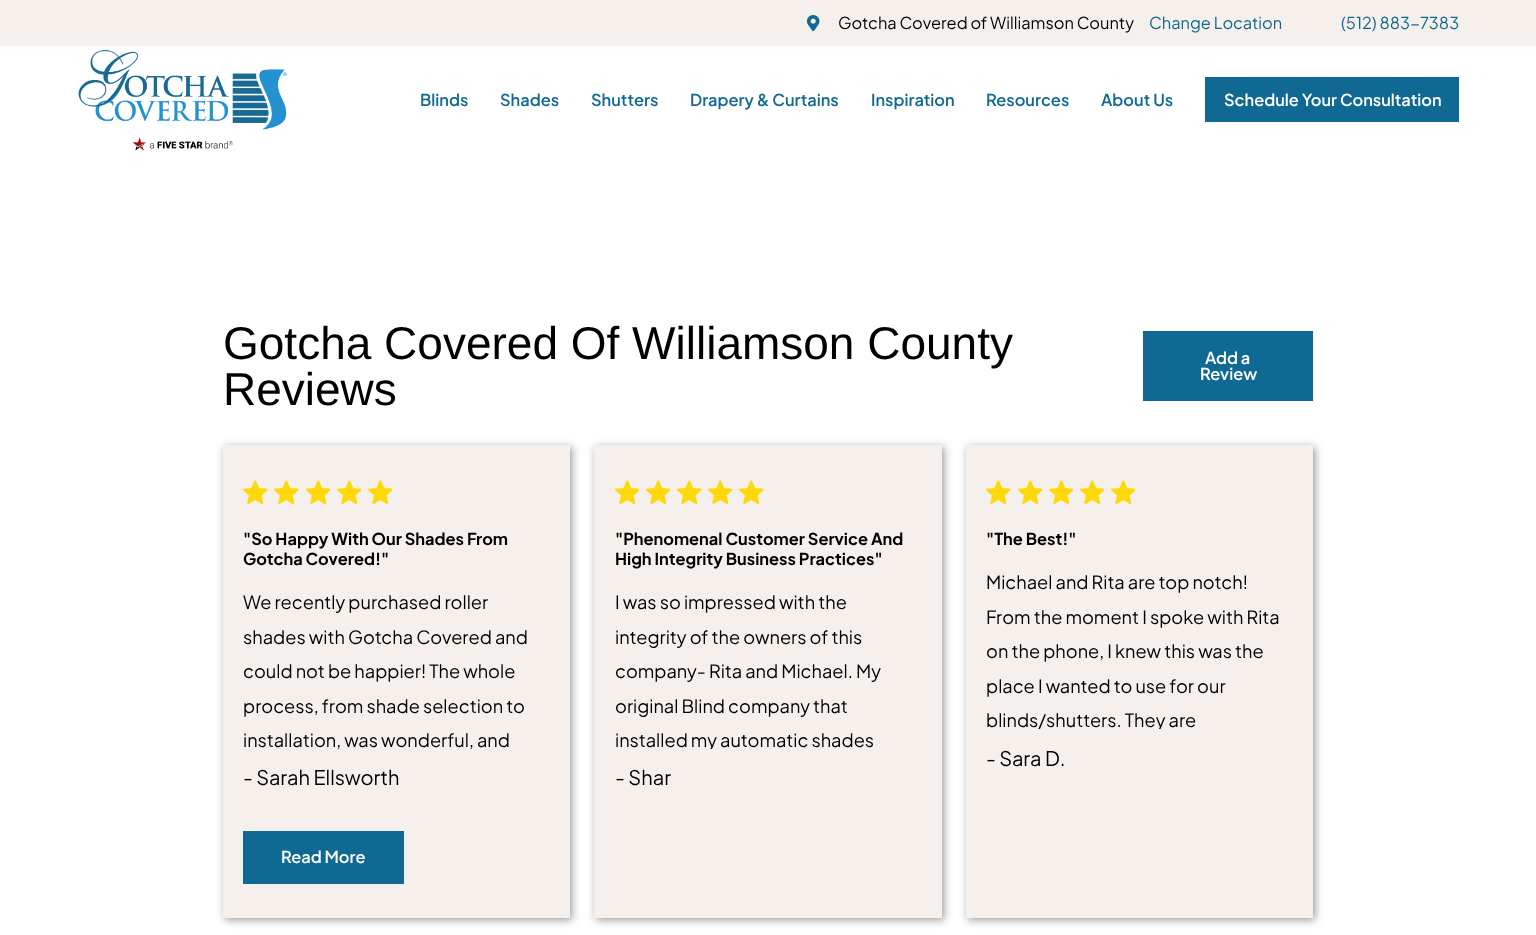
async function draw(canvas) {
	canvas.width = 1536;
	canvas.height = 935;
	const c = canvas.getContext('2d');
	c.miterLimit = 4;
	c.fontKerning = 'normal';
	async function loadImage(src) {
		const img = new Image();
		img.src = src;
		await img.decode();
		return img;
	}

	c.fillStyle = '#fff';
	c.fillRect(0, 0, 1536, 935);
	c.fillStyle = '#f5f0ec';
	c.fillRect(0, 0, 1536, 46);
	c.drawImage(await loadImage('img1.png'), 806, 15, 14, 16);
	c.font = '16.4px Plus Jakarta Sans';
	c.fillStyle = '#000';
	c.fillText('Gotcha Covered of Williamson County', 838, 29);
	c.fillStyle = '#106992';
	c.fillText('Change Location', 1149, 29);
	c.fillText('(512) 883-7383', 1341, 29);
	c.drawImage(await loadImage('img2.png'), 78, 49, 210, 102);
	c.font = '600 16.4px Plus Jakarta Sans';
	for (const [text, x, y] of [
		['Blinds', 420, 106],
		['Shades', 500, 106],
		['Shutters', 591, 106],
		['Drapery & Curtains', 690, 106],
		['Inspiration', 871, 106],
		['Resources', 986, 106],
		['About Us', 1101, 106],
	]) {
		c.fillText(text, x, y);
	}
	c.fillRect(1205, 77, 254, 45);
	c.fillStyle = '#fff';
	c.fillText('Schedule Your Consultation', 1224, 106);
	c.font = '46px Liberation Sans';
	c.fillStyle = '#000';
	c.fillText('Gotcha Covered Of Williamson County', 223, 359);
	c.fillText('Reviews', 223, 405);
	c.fillStyle = '#106992';
	c.fillRect(1143, 331, 170, 70);
	c.font = '600 16.4px Plus Jakarta Sans';
	c.fillStyle = '#fff';
	c.fillText('Add a', 1205, 364);
	c.fillText('Review', 1200, 380);
	c.fillStyle = '#00000066';
	c.filter = 'blur(4px)';
	c.beginPath();
	c.rect(225, 447, 347, 473);
	c.fill();
	c.filter = 'none';
	c.fillStyle = '#f5f0ec';
	c.fillRect(223, 445, 347, 473);
	c.drawImage(await loadImage('img3.png'), 243, 480, 25, 24);
	c.drawImage(await loadImage('img3.png'), 274, 480, 25, 24);
	c.drawImage(await loadImage('img4.png'), 306, 480, 24, 24);
	c.drawImage(await loadImage('img4.png'), 337, 480, 24, 24);
	c.drawImage(await loadImage('img4.png'), 368, 480, 24, 24);
	c.font = 'bold 16.4px Plus Jakarta Sans';
	c.fillStyle = '#000';
	c.fillText('"So Happy With Our Shades From', 243, 545);
	c.fillText('Gotcha Covered!"', 243, 565);
	c.font = '18.2px Plus Jakarta Sans';
	for (const [text, x, y] of [
		['We recently purchased roller', 243, 609],
		['shades with Gotcha Covered and', 243, 644],
		['could not be happier! The whole', 243, 678],
		['process, from shade selection to', 243, 713],
		['installation, was wonderful, and', 243, 747],
	]) {
		c.fillText(text, x, y);
	}
	c.font = '20px Plus Jakarta Sans';
	c.fillText('- Sarah Ellsworth', 243, 785);
	c.fillStyle = '#106992';
	c.fillRect(243, 831, 161, 53);
	c.font = '600 16.4px Plus Jakarta Sans';
	c.fillStyle = '#fff';
	c.fillText('Read More', 281, 863);
	c.fillStyle = '#00000066';
	c.filter = 'blur(4px)';
	c.beginPath();
	c.rect(596, 447, 348, 473);
	c.fill();
	c.filter = 'none';
	c.fillStyle = '#f5f0ec';
	c.fillRect(594, 445, 348, 473);
	c.drawImage(await loadImage('img4.png'), 615, 480, 24, 24);
	c.drawImage(await loadImage('img3.png'), 646, 480, 25, 24);
	c.drawImage(await loadImage('img3.png'), 677, 480, 25, 24);
	c.drawImage(await loadImage('img3.png'), 708, 480, 25, 24);
	c.drawImage(await loadImage('img3.png'), 739, 480, 25, 24);
	c.font = 'bold 16.4px Plus Jakarta Sans';
	c.fillStyle = '#000';
	c.fillText('"Phenomenal Customer Service And', 615, 545);
	c.fillText('High Integrity Business Practices"', 615, 565);
	c.font = '18.2px Plus Jakarta Sans';
	for (const [text, x, y] of [
		['I was so impressed with the', 615, 609],
		['integrity of the owners of this', 615, 644],
		['company- Rita and Michael. My', 615, 678],
		['original Blind company that', 615, 713],
	]) {
		c.fillText(text, x, y);
	}
	c.save();
	c.beginPath();
	c.rect(615, 585, 306, 164);
	c.clip();
	c.fillText('installed my automatic shades', 615, 747);
	c.restore();
	c.font = '20px Plus Jakarta Sans';
	c.fillText('- Shar', 615, 785);
	c.fillStyle = '#00000066';
	c.filter = 'blur(4px)';
	c.beginPath();
	c.rect(968, 447, 347, 473);
	c.fill();
	c.filter = 'none';
	c.fillStyle = '#f5f0ec';
	c.fillRect(966, 445, 347, 473);
	c.drawImage(await loadImage('img3.png'), 986, 480, 25, 24);
	c.drawImage(await loadImage('img4.png'), 1018, 480, 24, 24);
	c.drawImage(await loadImage('img4.png'), 1049, 480, 24, 24);
	c.drawImage(await loadImage('img4.png'), 1080, 480, 24, 24);
	c.drawImage(await loadImage('img4.png'), 1111, 480, 24, 24);
	c.font = 'bold 16.4px Plus Jakarta Sans';
	c.fillStyle = '#000';
	c.fillText('"The Best!"', 986, 545);
	c.font = '18.2px Plus Jakarta Sans';
	for (const [text, x, y] of [
		['Michael and Rita are top notch!', 986, 589],
		['From the moment I spoke with Rita', 986, 624],
		['on the phone, I knew this was the', 986, 658],
		['place I wanted to use for our', 986, 693],
	]) {
		c.fillText(text, x, y);
	}
	c.save();
	c.beginPath();
	c.rect(986, 565, 307, 164);
	c.clip();
	c.fillText('blinds/shutters. They are', 986, 727);
	c.restore();
	c.font = '20px Plus Jakarta Sans';
	c.fillText('- Sara D.', 986, 766);
}

draw(document.querySelector('canvas'));
